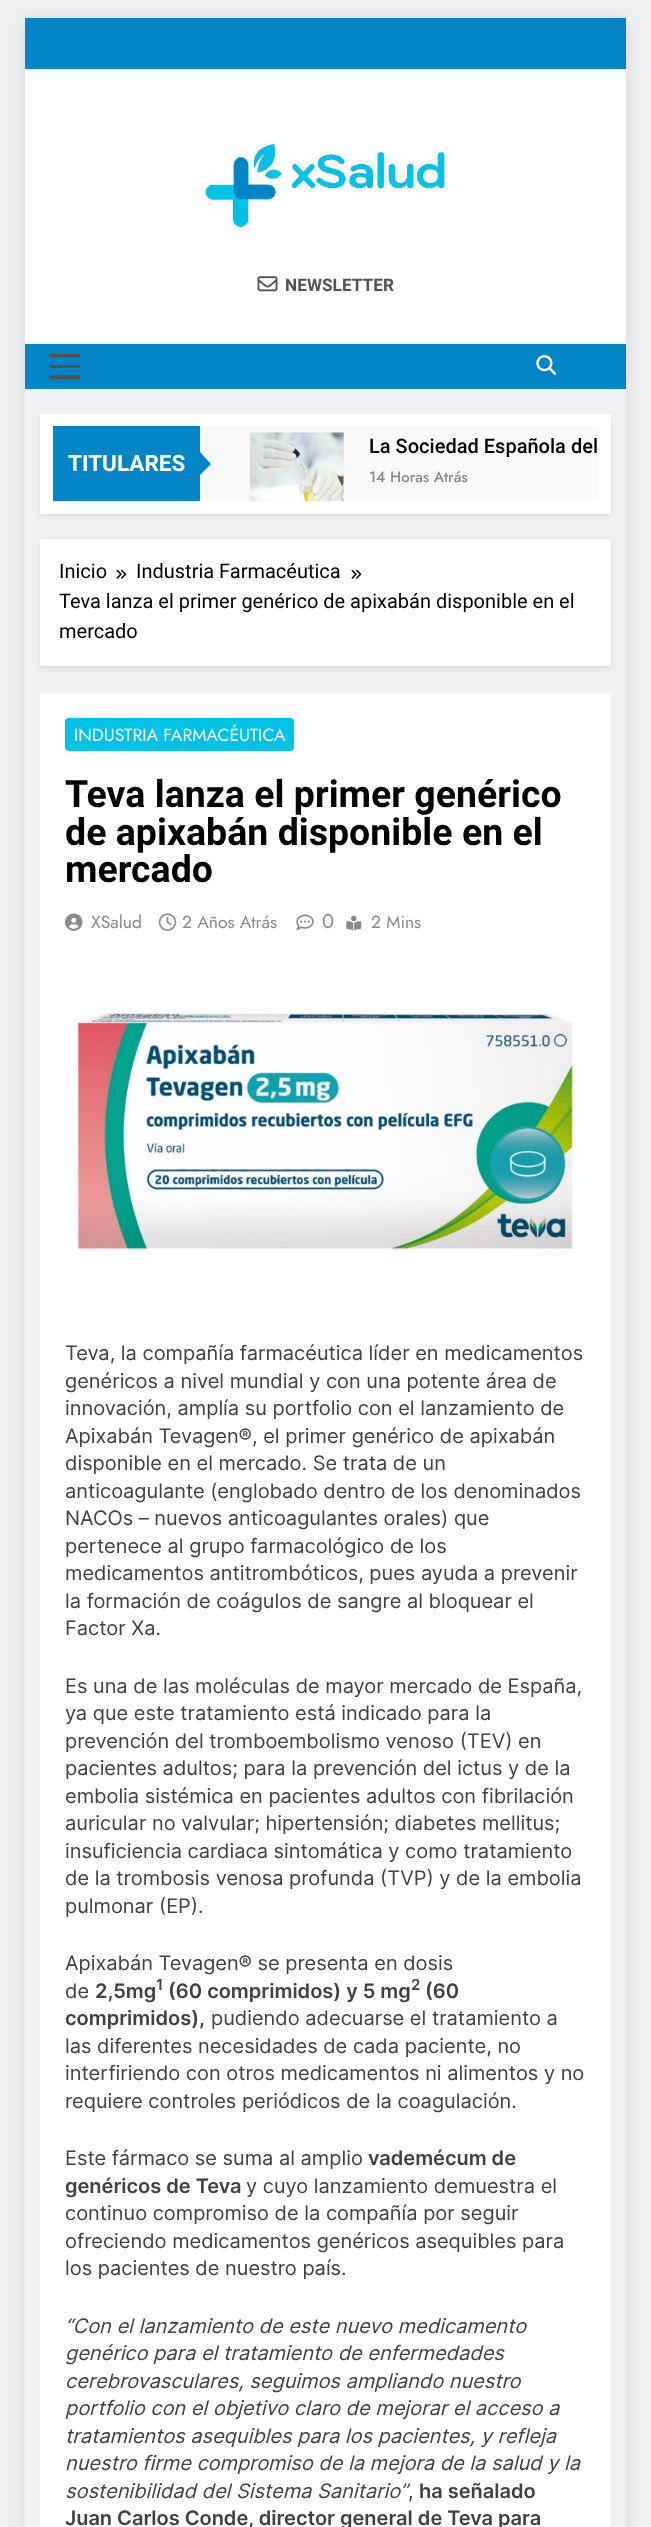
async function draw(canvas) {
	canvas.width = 651;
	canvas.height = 2527;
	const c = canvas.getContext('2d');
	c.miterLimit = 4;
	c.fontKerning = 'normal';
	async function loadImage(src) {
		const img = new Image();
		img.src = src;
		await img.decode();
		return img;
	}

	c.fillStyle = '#f0f1f2';
	c.fillRect(0, 0, 651, 2527);
	c.save();
	c.beginPath();
	c.moveTo(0, 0);
	c.lineTo(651, 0);
	c.lineTo(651, 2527);
	c.lineTo(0, 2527);
	c.closePath();
	c.moveTo(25, 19);
	c.lineTo(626, 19);
	c.lineTo(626, 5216);
	c.lineTo(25, 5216);
	c.closePath();
	c.clip('evenodd');
	c.fillStyle = '#0000001a';
	c.filter = 'blur(9.5px)';
	c.beginPath();
	c.rect(25, 19, 601, 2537);
	c.fill();
	c.filter = 'none';
	c.restore();
	c.fillStyle = '#0284c7';
	c.fillRect(25, 18, 601, 51);
	c.fillStyle = '#fff';
	c.fillRect(25, 69, 601, 275);
	c.drawImage(await loadImage('img1.png'), 201, 140, 248, 87);
	c.drawImage(await loadImage('img2.png'), 257, 276, 21, 16);
	c.font = 'bold 17.25px Roboto';
	c.fillStyle = '#525252';
	c.fillText('NEWSLETTER', 285, 291);
	for (const [x, y, w, h, color] of [
		[25, 344, 601, 45, '#0284c7'],
		[50, 354, 30, 3, '#525252'],
		[50, 365, 30, 3, '#525252'],
		[50, 375, 30, 4, '#525252'],
	]) {
		c.fillStyle = color;
		c.fillRect(x, y, w, h);
	}
	c.drawImage(await loadImage('img3.png'), 536, 355, 21, 20);
	c.fillStyle = '#00000014';
	c.filter = 'blur(2.5px)';
	c.beginPath();
	c.rect(40, 416, 571, 100);
	c.fill();
	c.filter = 'none';
	c.fillStyle = '#fff';
	c.fillRect(40, 414, 571, 100);
	c.fillStyle = '#0284c7';
	c.fillRect(53, 426, 147, 75);
	c.font = 'bold 22.5px Roboto';
	c.fillStyle = '#fff';
	c.fillText('TITULARES', 68, 471);
	c.fillStyle = '#f9f9f9';
	c.fillRect(200, 426, 399, 75);
	c.fillStyle = '#0284c7';
	c.beginPath();
	c.moveTo(199, 476);
	c.lineTo(199, 451);
	c.lineTo(211, 464);
	c.closePath();
	c.fill();
	c.drawImage(await loadImage('img4.png'), 250, 432, 94, 70);
	c.font = '500 20px Roboto';
	c.fillStyle = '#000';
	c.fillText('La Sociedad Española del', 369, 453);
	c.font = '500 15px Jost';
	c.fillStyle = '#8a8a8c';
	c.fillText('14 Horas Atrás', 369, 482);
	c.fillStyle = '#00000014';
	c.filter = 'blur(2.5px)';
	c.beginPath();
	c.rect(40, 541, 571, 128);
	c.fill();
	c.filter = 'none';
	c.fillStyle = '#fff';
	c.fillRect(40, 539, 571, 127);
	c.font = '20px Roboto';
	c.fillStyle = '#000';
	c.fillText('Inicio', 59, 578);
	c.drawImage(await loadImage('img5.png'), 116, 569, 11, 10);
	c.fillText('Industria Farmacéutica', 136, 578);
	c.drawImage(await loadImage('img5.png'), 351, 569, 11, 10);
	c.fillText('Teva lanza el primer genérico de apixabán disponible en el', 59, 608);
	c.fillText('mercado', 59, 638);
	c.fillStyle = '#fff';
	c.fillRect(40, 693, 571, 1834);
	c.fillStyle = '#01c3e7';
	c.beginPath();
	c.roundRect(65, 718, 229, 33, 4);
	c.fill();
	c.font = '17.5px Jost';
	c.fillStyle = '#fff';
	c.fillText('INDUSTRIA FARMACÉUTICA', 74, 741);
	c.font = 'bold 37.5px Roboto';
	c.fillStyle = '#000';
	for (const [text, x, y] of [
		['Teva lanza el primer genérico', 65, 807],
		['de apixabán disponible en el', 65, 845],
		['mercado', 65, 882],
	]) {
		c.fillText(text, x, y);
	}
	c.drawImage(await loadImage('img6.png'), 65, 913, 18, 18);
	c.font = '17.5px Jost';
	c.fillStyle = '#8a8a8c';
	c.fillText('XSalud', 91, 928);
	c.drawImage(await loadImage('img7.png'), 158, 913, 19, 18);
	c.fillText('2 Años Atrás', 182, 928);
	c.drawImage(await loadImage('img8.png'), 296, 914, 18, 16);
	c.font = '20px Jost';
	c.fillText('0', 322, 928);
	c.drawImage(await loadImage('img9.png'), 346, 915, 16, 16);
	c.font = '17.5px Jost';
	c.fillText('2 Mins', 371, 928);
	c.drawImage(await loadImage('img10.png'), 76, 1013, 505, 246);
	c.font = '20px Inter';
	c.fillStyle = '#404040';
	for (const [text, x, y] of [
		['Teva, la compañía farmacéutica líder en medicamentos', 65, 1360],
		['genéricos a nivel mundial y con una potente área de', 65, 1388],
		['innovación, amplía su portfolio con el lanzamiento de', 65, 1415],
		['Apixabán Tevagen®, el primer genérico de apixabán', 65, 1443],
		['disponible en el mercado. Se trata de un', 65, 1470],
		['anticoagulante (englobado dentro de los denominados', 65, 1498],
		['NACOs – nuevos anticoagulantes orales) que', 65, 1525],
		['pertenece al grupo farmacológico de los', 65, 1553],
		['medicamentos antitrombóticos, pues ayuda a prevenir', 65, 1580],
		['la formación de coágulos de sangre al bloquear el', 65, 1608],
		['Factor Xa.', 65, 1635],
		['Es una de las moléculas de mayor mercado de España,', 65, 1693],
		['ya que este tratamiento está indicado para la', 65, 1720],
		['prevención del tromboembolismo venoso (TEV) en', 65, 1748],
		['pacientes adultos; para la prevención del ictus y de la', 65, 1775],
		['embolia sistémica en pacientes adultos con fibrilación', 65, 1803],
		['auricular no valvular; hipertensión; diabetes mellitus;', 65, 1830],
		['insuficiencia cardiaca sintomática y como tratamiento', 65, 1858],
		['de la trombosis venosa profunda (TVP) y de la embolia', 65, 1885],
		['pulmonar (EP).', 65, 1913],
		['Apixabán Tevagen® se presenta en dosis', 65, 1970],
		['de', 65, 1998],
	]) {
		c.fillText(text, x, y);
	}
	c.font = '600 20px Inter';
	c.fillText('2,5mg', 95, 1998);
	c.font = '600 15px Inter';
	c.fillText('1', 156, 1990);
	c.font = '600 20px Inter';
	c.fillText('(60 comprimidos) y 5 mg', 168, 1998);
	c.font = '600 15px Inter';
	c.fillText('2', 411, 1990);
	c.font = '600 20px Inter';
	c.fillText('(60', 425, 1998);
	c.fillText('comprimidos),', 65, 2025);
	c.font = '20px Inter';
	for (const [text, x, y] of [
		['pudiendo adecuarse el tratamiento a', 211, 2025],
		['las diferentes necesidades de cada paciente, no', 65, 2053],
		['interfiriendo con otros medicamentos ni alimentos y no', 65, 2080],
		['requiere controles periódicos de la coagulación.', 65, 2108],
		['Este fármaco se suma al amplio', 65, 2165],
	]) {
		c.fillText(text, x, y);
	}
	c.font = '600 20px Inter';
	c.fillText('vademécum de', 368, 2165);
	c.fillText('genéricos de Teva', 65, 2193);
	c.font = '20px Inter';
	for (const [text, x, y] of [
		['y cuyo lanzamiento demuestra el', 246, 2193],
		['continuo compromiso de la compañía por seguir', 65, 2220],
		['ofreciendo medicamentos genéricos asequibles para', 65, 2248],
		['los pacientes de nuestro país.', 65, 2275],
	]) {
		c.fillText(text, x, y);
	}
	c.font = 'italic 20px Inter';
	for (const [text, x, y] of [
		['“Con el lanzamiento de este nuevo medicamento', 65, 2333],
		['genérico para el tratamiento de enfermedades', 65, 2360],
		['cerebrovasculares, seguimos ampliando nuestro', 65, 2388],
		['portfolio con el objetivo claro de mejorar el acceso a', 65, 2415],
		['tratamientos asequibles para los pacientes, y refleja', 65, 2443],
		['nuestro firme compromiso de la mejora de la salud y la', 65, 2470],
		['sostenibilidad del Sistema Sanitario”', 65, 2498],
	]) {
		c.fillText(text, x, y);
	}
	c.font = '600 20px Inter';
	c.fillText('ha señalado', 419, 2498);
	c.font = '20px Inter';
	c.fillText(',', 408, 2498);
	c.font = '600 20px Inter';
	c.fillText('Juan Carlos Conde, director general de Teva para', 65, 2525);
}

draw(document.querySelector('canvas'));
